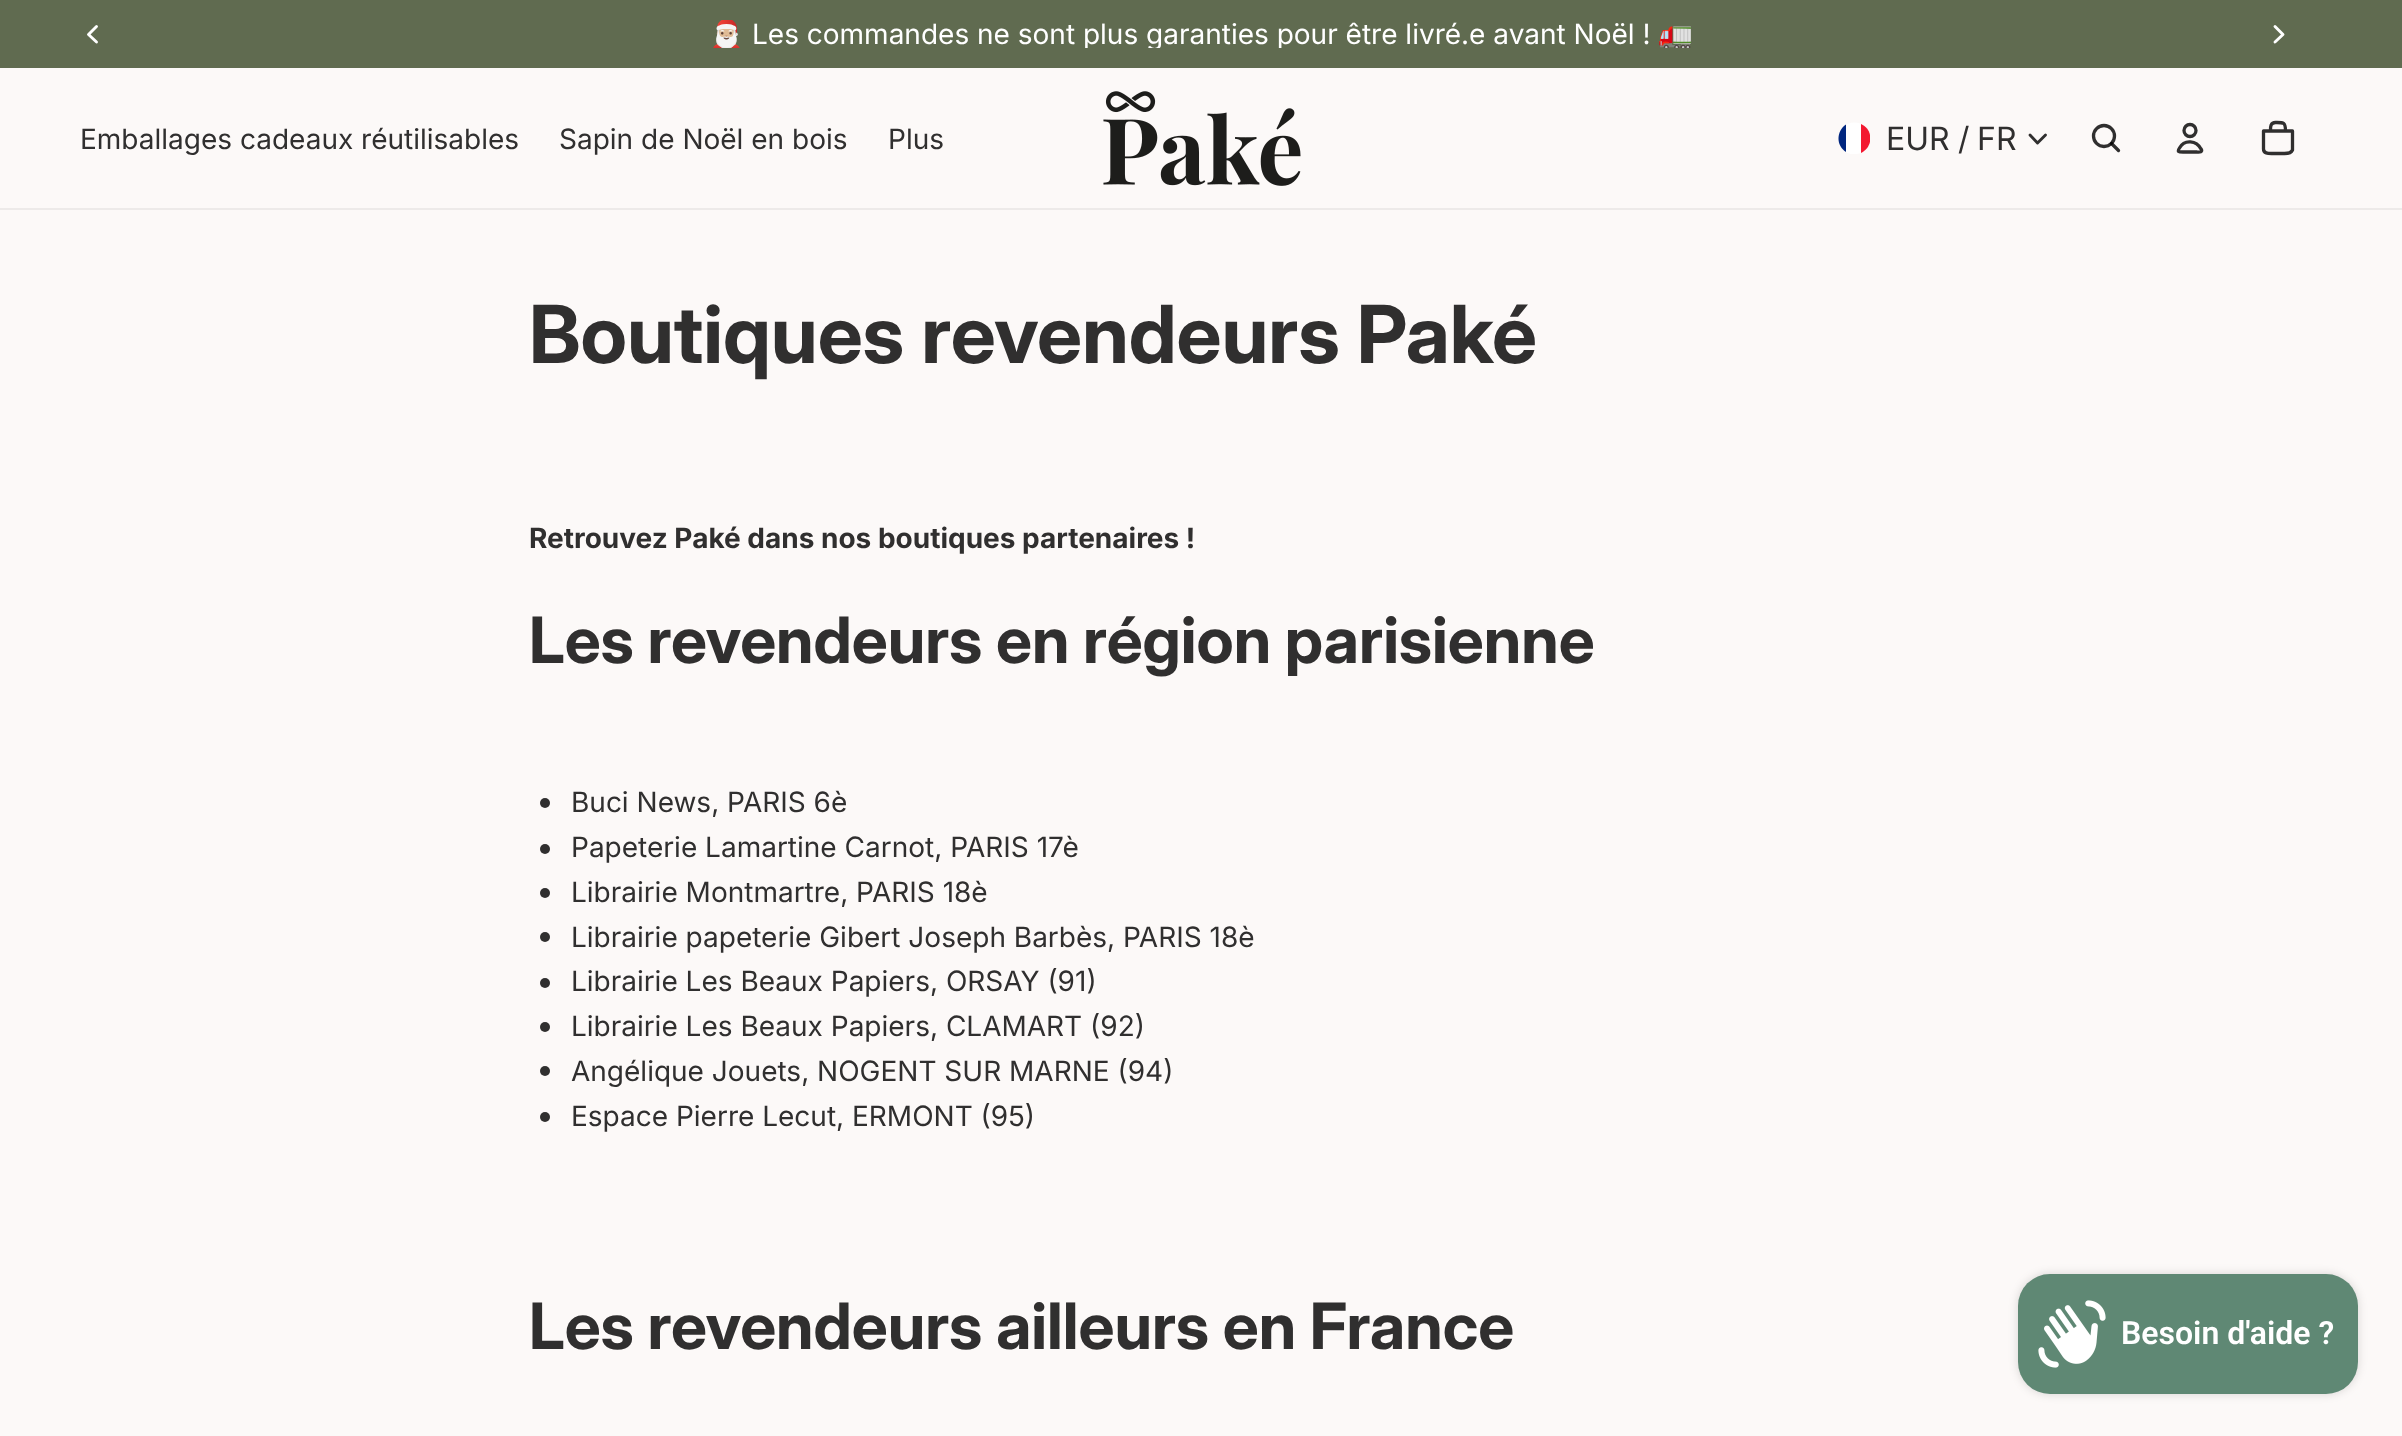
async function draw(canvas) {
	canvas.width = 2402;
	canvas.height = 1436;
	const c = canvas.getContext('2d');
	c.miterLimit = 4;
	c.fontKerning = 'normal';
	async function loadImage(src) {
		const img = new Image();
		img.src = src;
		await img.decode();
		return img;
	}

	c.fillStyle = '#fcf9f8';
	c.fillRect(0, 0, 2402, 1436);
	c.fillStyle = '#606b50';
	c.fillRect(0, 0, 2402, 68);
	c.save();
	c.beginPath();
	c.rect(522, 20, 1360, 28);
	c.clip();
	c.font = '28px Noto Color Emoji';
	c.fillStyle = '#fff';
	c.fillText('🎅🏼', 709, 44);
	c.font = '28px Inter';
	c.fillText('Les commandes ne sont plus garanties pour être livré.e avant Noël !', 752, 44);
	c.font = '28px Noto Color Emoji';
	c.fillText('🚛', 1658, 44);
	c.restore();
	c.beginPath();
	c.moveTo(96.5, 26.5);
	c.lineTo(88.5, 34.5);
	c.lineTo(96.5, 42);
	c.strokeStyle = '#fff';
	c.lineWidth = 2.9;
	c.lineCap = 'round';
	c.lineJoin = 'round';
	c.stroke();
	c.beginPath();
	c.moveTo(2275, 26.5);
	c.lineTo(2283, 34.5);
	c.lineTo(2275, 42);
	c.stroke();
	c.fillStyle = '#edeae9';
	c.fillRect(0, 208, 2402, 2);
	c.font = '28px Inter';
	c.fillStyle = '#302f2f';
	for (const [text, x, y] of [
		['Emballages cadeaux réutilisables', 80, 149],
		['Sapin de Noël en bois', 559, 149],
		['Plus', 888, 149],
	]) {
		c.fillText(text, x, y);
	}
	c.drawImage(await loadImage('img1.png'), 1103, 91, 198, 95);
	c.save();
	c.beginPath();
	c.rect(1838, 122, 32, 32);
	c.clip();
	c.fillStyle = '#fff';
	c.beginPath();
	c.moveTo(1854.5, 122.5);
	c.bezierCurveTo(1869, 122.5, 1876, 140.5, 1865, 150.5);
	c.bezierCurveTo(1862, 153, 1859, 154, 1855.5, 154);
	c.lineTo(1851, 154);
	c.bezierCurveTo(1832.5, 150, 1835.5, 122.5, 1854.5, 122.5);
	c.closePath();
	c.fill();
	c.restore();
	c.fillStyle = '#00267f';
	c.beginPath();
	c.moveTo(1846, 124.5);
	c.lineTo(1846, 152);
	c.bezierCurveTo(1836, 146, 1836, 131, 1846, 124.5);
	c.closePath();
	c.fill();
	c.save();
	c.beginPath();
	c.rect(1838, 122, 32, 32);
	c.clip();
	c.fillStyle = '#f31830';
	c.beginPath();
	c.moveTo(1861, 153);
	c.lineTo(1861, 124);
	c.bezierCurveTo(1873.5, 129.5, 1873.5, 147, 1861, 153);
	c.closePath();
	c.fill();
	c.restore();
	c.font = '32px Inter';
	c.fillStyle = '#302f2f';
	c.fillText('EUR', 1886, 150);
	c.font = '32px "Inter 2"';
	c.fillText('/', 1958, 150);
	c.font = '32px Inter';
	c.fillText('FR', 1977, 150);
	c.beginPath();
	c.moveTo(2045.5, 135);
	c.lineTo(2037.5, 143);
	c.lineTo(2030, 135);
	c.strokeStyle = '#302f2f';
	c.stroke();
	c.beginPath();
	c.arc(2104, 136, 10.5, 0, 2 * Math.PI);
	c.lineWidth = 3.3;
	c.stroke();
	c.beginPath();
	c.moveTo(2111.5, 143.5);
	c.lineTo(2118.5, 150.5);
	c.strokeStyle = '#000000cf';
	c.stroke();
	c.beginPath();
	c.arc(2190, 130.5, 6, 0, 2 * Math.PI);
	c.strokeStyle = '#302f2f';
	c.stroke();
	c.beginPath();
	c.moveTo(2179.5, 148);
	c.bezierCurveTo(2177, 152, 2178.5, 152, 2183, 152);
	c.lineTo(2197, 152);
	c.bezierCurveTo(2197.5, 152, 2201, 152.5, 2201.5, 151);
	c.bezierCurveTo(2202, 150.5, 2201.5, 149.5, 2201, 149);
	c.bezierCurveTo(2196.5, 140.5, 2184.5, 139, 2179.5, 148);
	c.stroke();
	c.beginPath();
	c.moveTo(2263.5, 131);
	c.lineTo(2292.5, 131);
	c.lineTo(2292.5, 150);
	c.bezierCurveTo(2291, 153.5, 2287.5, 153.5, 2284.5, 153.5);
	c.lineTo(2271.5, 153.5);
	c.bezierCurveTo(2268, 153.5, 2263.5, 153.5, 2263.5, 149);
	c.closePath();
	c.moveTo(2275.5, 122.5);
	c.bezierCurveTo(2283.5, 122.5, 2285.5, 122, 2285.5, 131);
	c.lineTo(2270.5, 131);
	c.bezierCurveTo(2270.5, 127.5, 2270, 122.5, 2275.5, 122.5);
	c.stroke();
	c.font = 'bold 80px Inter';
	c.fillText('Boutiques revendeurs Paké', 529, 363);
	c.font = 'bold 28px "Inter 2"';
	c.fillText('Retrouvez Paké dans nos boutiques partenaires !', 529, 548);
	c.font = 'bold 64px Inter';
	c.fillText('Les revendeurs en région parisienne', 529, 663);
	c.beginPath();
	c.arc(545, 803, 5, 0, 2 * Math.PI);
	c.fill();
	c.font = '28px Inter';
	c.fillText('Buci News, PARIS 6è', 571, 812);
	c.beginPath();
	c.arc(545, 849, 5, 0, 2 * Math.PI);
	c.fill();
	c.fillText('Papeterie Lamartine Carnot, PARIS 17è', 571, 857);
	c.beginPath();
	c.arc(545, 893, 5, 0, 2 * Math.PI);
	c.fill();
	c.fillText('Librairie Montmartre, PARIS 18è', 571, 902);
	c.beginPath();
	c.arc(545, 937, 5, 0, 2 * Math.PI);
	c.fill();
	c.fillText('Librairie papeterie Gibert Joseph Barbès, PARIS 18è', 571, 947);
	c.beginPath();
	c.arc(545, 983, 5, 0, 2 * Math.PI);
	c.fill();
	c.fillText('Librairie Les Beaux Papiers, ORSAY (91)', 571, 991);
	c.beginPath();
	c.arc(545, 1027, 5, 0, 2 * Math.PI);
	c.fill();
	c.fillText('Librairie Les Beaux Papiers, CLAMART (92)', 571, 1036);
	c.beginPath();
	c.arc(545, 1071, 5, 0, 2 * Math.PI);
	c.fill();
	c.fillText('Angélique Jouets, NOGENT SUR MARNE (94)', 571, 1081);
	c.beginPath();
	c.arc(545, 1117, 5, 0, 2 * Math.PI);
	c.fill();
	c.fillText('Espace Pierre Lecut, ERMONT (95)', 571, 1126);
	c.font = 'bold 64px Inter';
	c.fillText('Les revendeurs ailleurs en France', 529, 1349);
	c.fillStyle = '#00000026';
	c.filter = 'blur(5px)';
	c.beginPath();
	c.roundRect(2018, 1274, 340, 120, 32);
	c.fill();
	c.filter = 'none';
	c.fillStyle = '#5f8874';
	c.beginPath();
	c.roundRect(2018, 1274, 340, 120, 32);
	c.fill();
	c.drawImage(await loadImage('img2.png'), 2038, 1300, 68, 68);
	c.font = '600 32px Roboto';
	c.fillStyle = '#fff';
	c.fillText('Besoin d\'aide ?', 2121, 1344);
}

draw(document.querySelector('canvas'));
